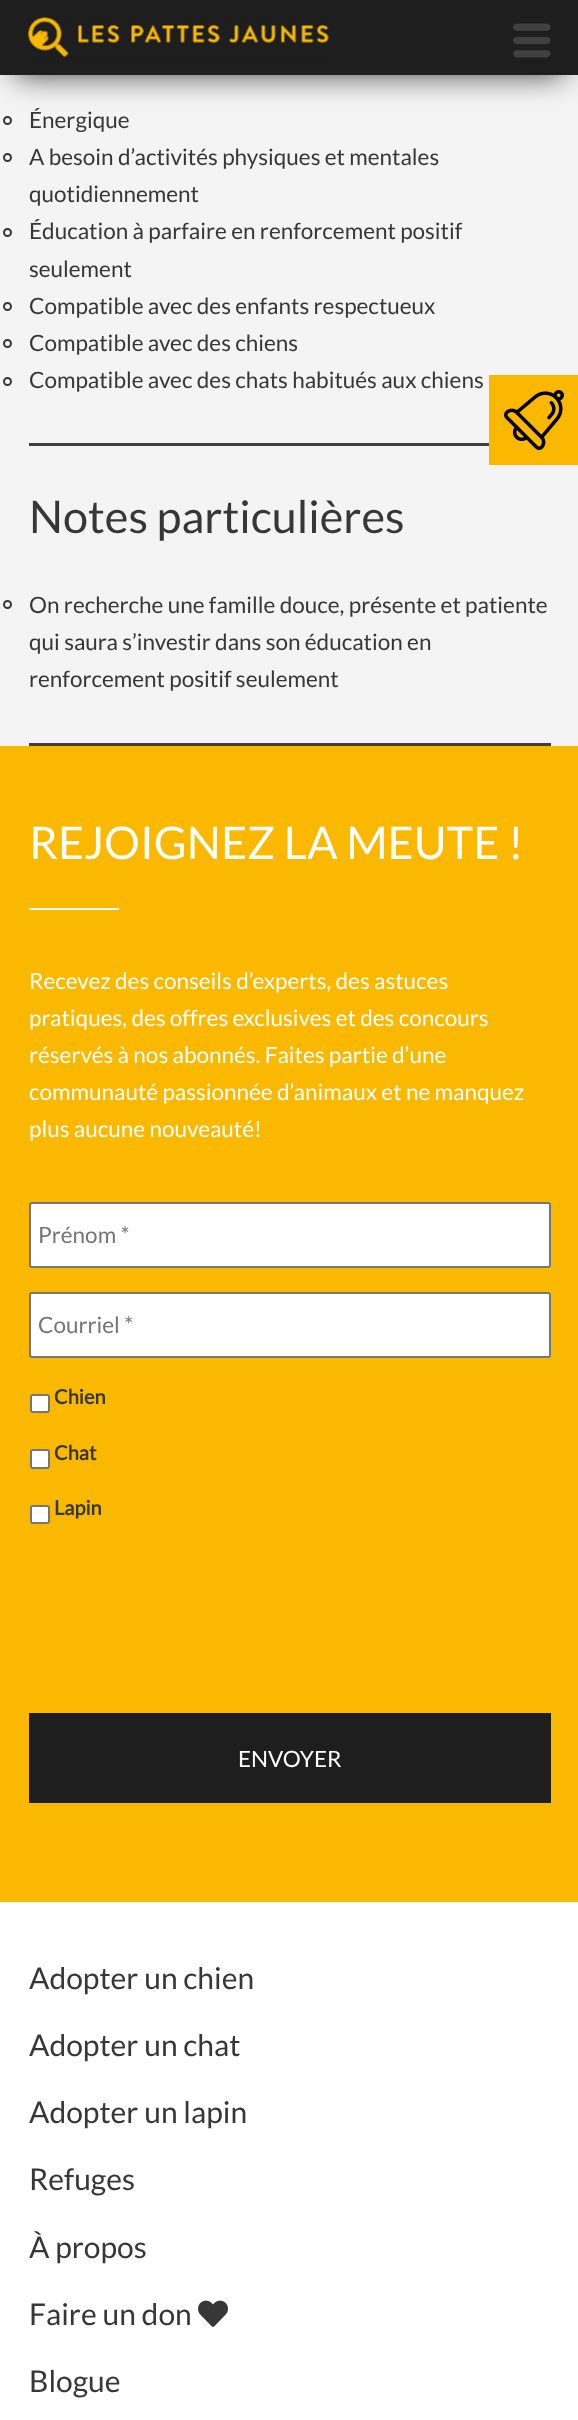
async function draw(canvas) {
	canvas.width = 578;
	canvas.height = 2420;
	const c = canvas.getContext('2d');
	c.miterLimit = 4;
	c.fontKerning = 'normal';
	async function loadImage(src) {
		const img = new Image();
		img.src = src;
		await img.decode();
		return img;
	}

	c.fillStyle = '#fff';
	c.fillRect(0, 0, 578, 2420);
	c.fillStyle = '#f4f4f4';
	c.fillRect(0, 75, 578, 671);
	c.beginPath();
	c.arc(7.5, 120.5, 3.5, 0, 2 * Math.PI);
	c.strokeStyle = '#373737';
	c.lineWidth = 2;
	c.stroke();
	c.fillStyle = '#000000bf';
	c.filter = 'blur(15px)';
	c.beginPath();
	c.rect(15, 30, 549, 45);
	c.fill();
	c.filter = 'none';
	c.fillStyle = '#1e1e1e';
	c.fillRect(0, 0, 578, 75);
	c.drawImage(await loadImage('img1.png'), 28, 17, 301, 41);
	c.drawImage(await loadImage('img2.png'), 513, 23, 38, 35);
	c.fillStyle = '#404040';
	c.fillRect(29, 443, 460, 3);
	c.font = '22.5px Lato';
	c.fillStyle = '#373737';
	c.fillText('Énergique', 29, 128);
	c.beginPath();
	c.arc(7.5, 157.5, 3.5, 0, 2 * Math.PI);
	c.stroke();
	c.fillText('A besoin d’activités physiques et mentales', 29, 165);
	c.fillText('quotidiennement', 29, 202);
	c.beginPath();
	c.arc(7.5, 232.5, 3.5, 0, 2 * Math.PI);
	c.stroke();
	c.fillText('Éducation à parfaire en renforcement positif', 29, 239);
	c.fillText('seulement', 29, 277);
	c.beginPath();
	c.arc(7.5, 306.5, 3.5, 0, 2 * Math.PI);
	c.stroke();
	c.fillText('Compatible avec des enfants respectueux', 29, 314);
	c.beginPath();
	c.arc(7.5, 343.5, 3.5, 0, 2 * Math.PI);
	c.stroke();
	c.fillText('Compatible avec des chiens', 29, 351);
	c.beginPath();
	c.arc(7.5, 381.5, 3.5, 0, 2 * Math.PI);
	c.stroke();
	c.fillText('Compatible avec des chats habitués aux chiens', 29, 388);
	c.fillStyle = '#404040';
	c.fillRect(29, 743, 522, 3);
	c.font = '45px Lato';
	c.fillStyle = '#373737';
	c.fillText('Notes particulières', 29, 533);
	c.beginPath();
	c.arc(7.5, 604.5, 3.5, 0, 2 * Math.PI);
	c.stroke();
	c.font = '22.5px Lato';
	for (const [text, x, y] of [
		['On recherche une famille douce, présente et patiente', 29, 613],
		['qui saura s’investir dans son éducation en', 29, 650],
		['renforcement positif seulement', 29, 687],
	]) {
		c.fillText(text, x, y);
	}
	c.fillStyle = '#fab800';
	c.fillRect(0, 746, 578, 1156);
	c.font = '45px Lato';
	c.fillStyle = '#fff';
	c.fillText('REJOIGNEZ LA MEUTE !', 29, 859);
	c.fillRect(29, 908, 90, 2);
	c.font = '22.5px Lato';
	for (const [text, x, y] of [
		['Recevez des conseils d’experts, des astuces', 29, 989],
		['pratiques, des offres exclusives et des concours', 29, 1026],
		['réservés à nos abonnés. Faites partie d’une', 29, 1063],
		['communauté passionnée d’animaux et ne manquez', 29, 1100],
		['plus aucune nouveauté!', 29, 1137],
	]) {
		c.fillText(text, x, y);
	}
	c.beginPath();
	c.roundRect(30, 1203, 520, 64, 2);
	c.fill();
	c.strokeStyle = '#767676';
	c.stroke();
	c.fillStyle = '#757575';
	c.fillText('Prénom *', 38, 1243);
	c.fillStyle = '#fff';
	c.beginPath();
	c.roundRect(30, 1293, 520, 64, 2);
	c.fill();
	c.stroke();
	c.fillStyle = '#757575';
	c.fillText('Courriel *', 38, 1333);
	c.fillStyle = '#fff';
	c.beginPath();
	c.roundRect(31, 1395, 18, 17, 2);
	c.fill();
	c.stroke();
	c.font = 'bold 20px Lato';
	c.fillStyle = '#373737';
	c.fillText('Chien', 54, 1404);
	c.fillStyle = '#fff';
	c.beginPath();
	c.roundRect(31, 1450, 18, 18, 2);
	c.fill();
	c.stroke();
	c.fillStyle = '#373737';
	c.fillText('Chat', 54, 1460);
	c.fillStyle = '#fff';
	c.beginPath();
	c.roundRect(31, 1506, 18, 17, 2);
	c.fill();
	c.stroke();
	c.fillStyle = '#373737';
	c.fillText('Lapin', 54, 1515);
	c.fillStyle = '#1e1e1e';
	c.fillRect(29, 1713, 522, 90);
	c.font = '22.5px Lato';
	c.fillStyle = '#fff';
	c.fillText('ENVOYER', 238, 1767);
	c.font = '30px Lato';
	c.fillStyle = '#373737';
	for (const [text, x, y] of [
		['Adopter un chien', 29, 1989],
		['Adopter un chat', 29, 2056],
		['Adopter un lapin', 29, 2123],
		['Refuges', 29, 2190],
		['À propos', 29, 2258],
		['Faire un don', 29, 2325],
	]) {
		c.fillText(text, x, y);
	}
	c.drawImage(await loadImage('img3.png'), 198, 2300, 30, 27);
	c.fillText('Blogue', 29, 2392);
	c.fillStyle = '#fab800';
	c.fillRect(489, 375, 89, 90);
	c.drawImage(await loadImage('img4.png'), 504, 390, 60, 60);
}

draw(document.querySelector('canvas'));
